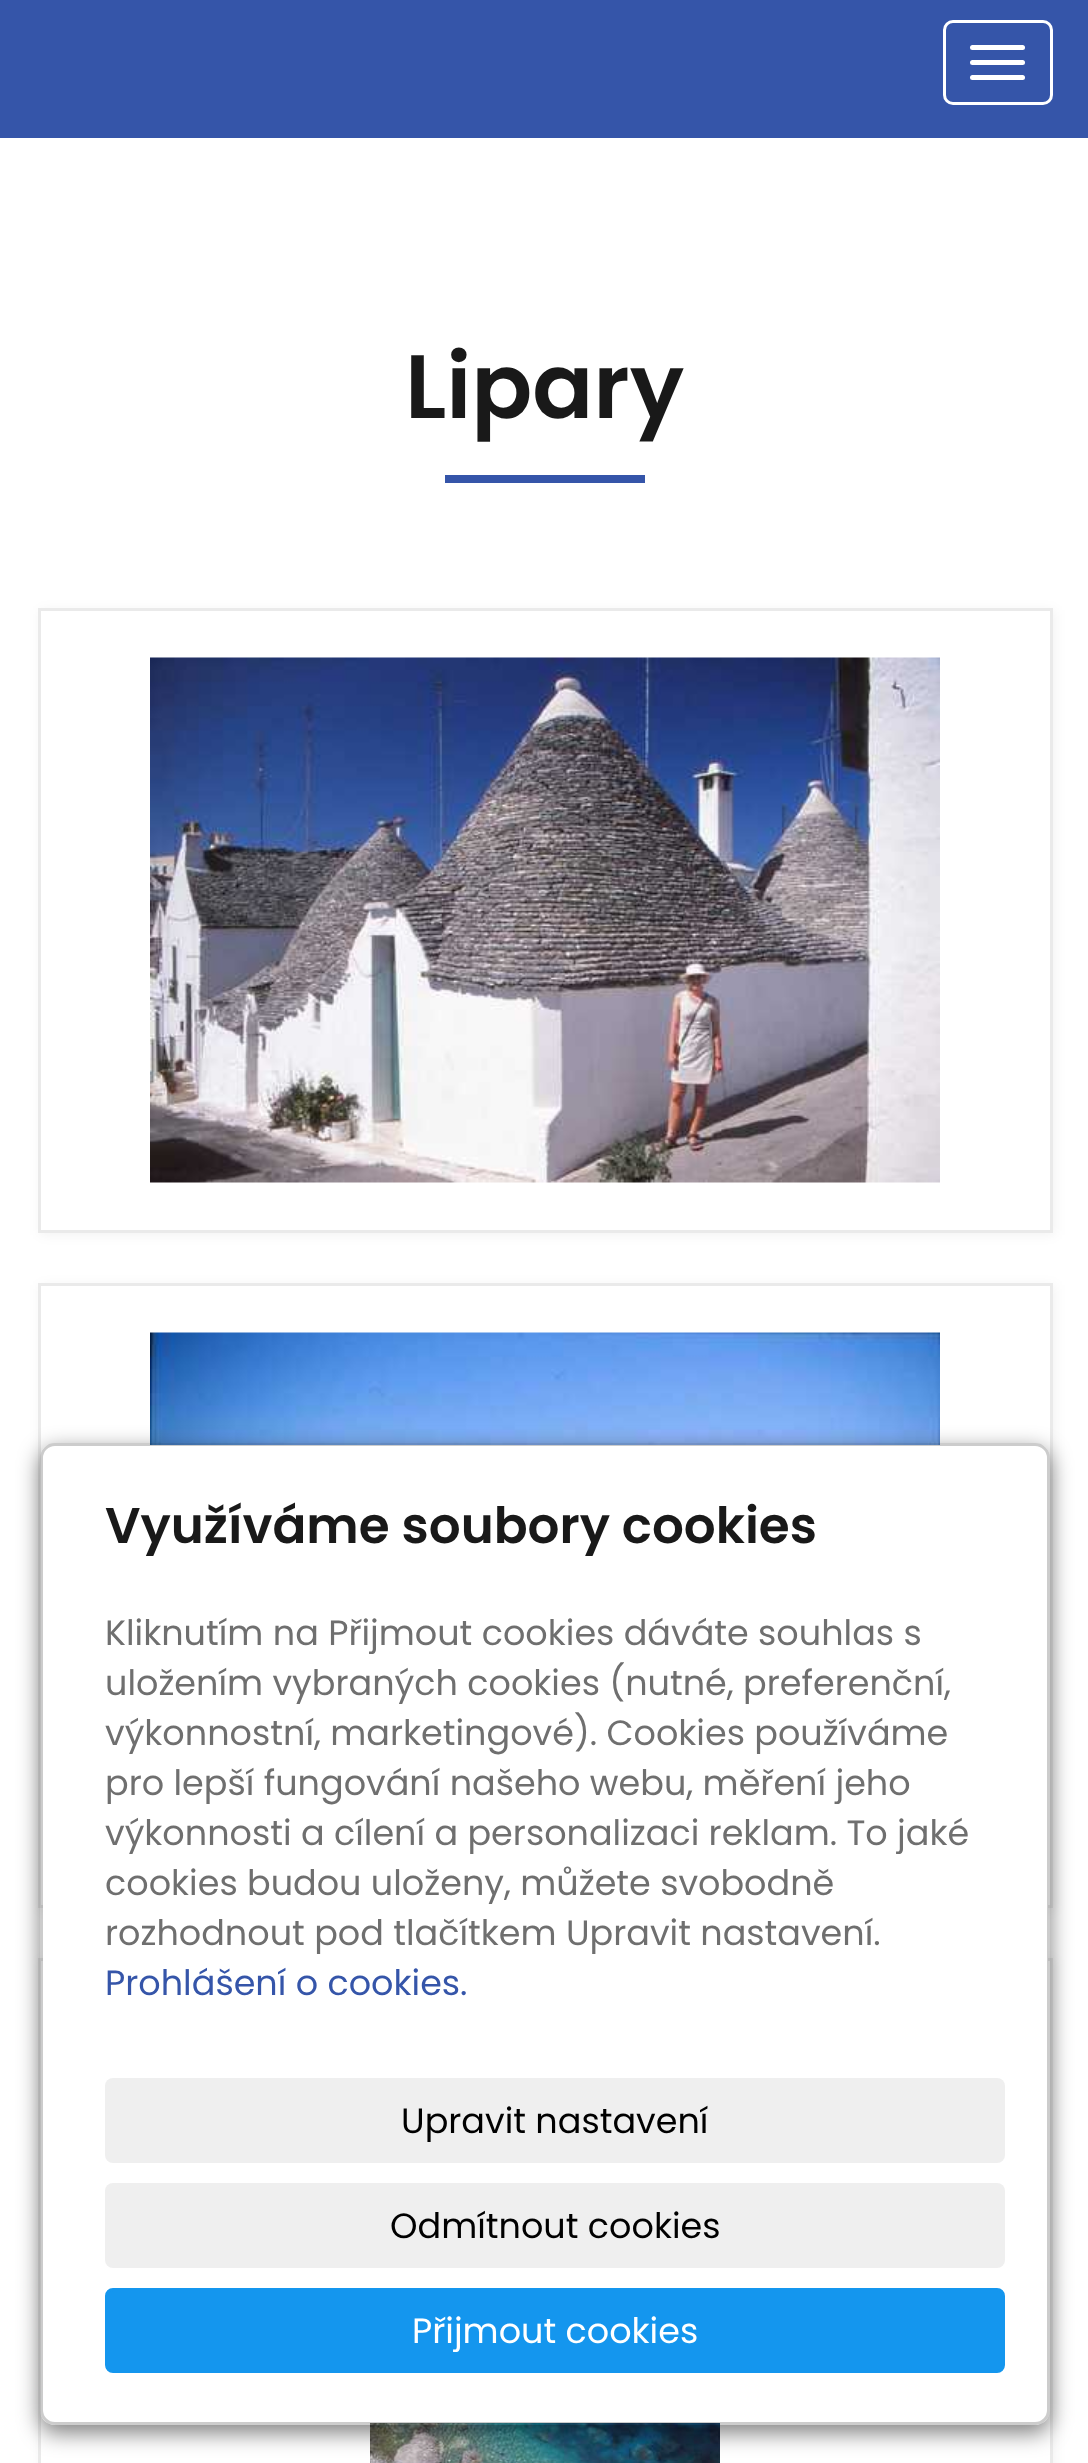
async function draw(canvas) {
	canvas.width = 1088;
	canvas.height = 2463;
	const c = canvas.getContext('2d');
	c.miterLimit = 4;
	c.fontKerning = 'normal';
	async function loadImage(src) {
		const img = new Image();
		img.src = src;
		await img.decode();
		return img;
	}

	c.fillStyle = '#fff';
	c.fillRect(0, 0, 1088, 2463);
	c.fillStyle = '#3555a9';
	c.fillRect(0, 0, 1088, 138);
	c.beginPath();
	c.roundRect(944.5, 21.5, 107, 82, 8.5);
	c.strokeStyle = '#fff';
	c.lineWidth = 3;
	c.stroke();
	c.fillStyle = '#fff';
	c.beginPath();
	c.roundRect(970, 45, 55, 5, 2.5);
	c.fill();
	c.beginPath();
	c.roundRect(970, 60, 55, 5, 2.5);
	c.fill();
	c.beginPath();
	c.roundRect(970, 75, 55, 5, 2.5);
	c.fill();
	c.font = '600 90px Poppins';
	c.fillStyle = '#191919';
	c.fillText('Lipary', 405, 418);
	c.fillStyle = '#3555a9';
	c.fillRect(445, 475, 200, 8);
	c.fillStyle = '#0000000d';
	c.filter = 'blur(6px)';
	c.beginPath();
	c.rect(40, 610, 1015, 625);
	c.fill();
	c.filter = 'none';
	c.fillStyle = '#fff';
	c.beginPath();
	c.rect(39.5, 609.5, 1012, 622);
	c.fill();
	c.strokeStyle = '#eaeaea';
	c.stroke();
	c.drawImage(await loadImage('img1.png'), 150, 657, 790, 526);
	c.fillStyle = '#0000000d';
	c.filter = 'blur(6px)';
	c.beginPath();
	c.rect(40, 1285, 1015, 625);
	c.fill();
	c.filter = 'none';
	c.fillStyle = '#fff';
	c.beginPath();
	c.rect(39.5, 1284.5, 1012, 622);
	c.fill();
	c.stroke();
	c.drawImage(await loadImage('img2.png'), 150, 1332, 790, 113);
	c.fillStyle = '#0000000d';
	c.filter = 'blur(6px)';
	c.beginPath();
	c.rect(40, 1960, 1015, 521);
	c.fill();
	c.filter = 'none';
	c.fillStyle = '#fff';
	c.beginPath();
	c.rect(39.5, 1959.5, 1012, 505);
	c.fill();
	c.stroke();
	c.drawImage(await loadImage('img3.png'), 370, 2423, 350, 40);
	c.save();
	c.beginPath();
	c.moveTo(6, 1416);
	c.lineTo(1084, 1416);
	c.lineTo(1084, 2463);
	c.lineTo(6, 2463);
	c.closePath();
	c.moveTo(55, 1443);
	c.lineTo(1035, 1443);
	c.bezierCurveTo(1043.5, 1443, 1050, 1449.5, 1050, 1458);
	c.lineTo(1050, 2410);
	c.bezierCurveTo(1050, 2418.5, 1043.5, 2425, 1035, 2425);
	c.lineTo(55, 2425);
	c.bezierCurveTo(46.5, 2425, 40, 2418.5, 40, 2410);
	c.lineTo(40, 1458);
	c.bezierCurveTo(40, 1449.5, 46.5, 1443, 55, 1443);
	c.closePath();
	c.clip('evenodd');
	c.fillStyle = '#00000080';
	c.filter = 'blur(11px)';
	c.beginPath();
	c.roundRect(40, 1450, 1010, 983, 15);
	c.fill();
	c.filter = 'none';
	c.restore();
	c.beginPath();
	c.roundRect(43, 1445, 1005, 978, 13);
	c.fill();
	c.beginPath();
	c.roundRect(41.5, 1444.5, 1007, 979, 13.5);
	c.strokeStyle = '#00000033';
	c.stroke();
	c.font = '600 50px Poppins';
	c.fillStyle = '#191919';
	c.fillText('Využíváme soubory cookies', 105, 1543);
	c.font = '35px Poppins';
	c.fillStyle = '#6f6f6f';
	for (const [text, x, y] of [
		['Kliknutím na Přijmout cookies dáváte souhlas s', 105, 1645],
		['uložením vybraných cookies (nutné, preferenční,', 105, 1695],
		['výkonnostní, marketingové). Cookies používáme', 105, 1745],
		['pro lepší fungování našeho webu, měření jeho', 105, 1795],
		['výkonnosti a cílení a personalizaci reklam. To jaké', 105, 1845],
		['cookies budou uloženy, můžete svobodně', 105, 1895],
		['rozhodnout pod tlačítkem Upravit nastavení.', 105, 1945],
	]) {
		c.fillText(text, x, y);
	}
	c.fillStyle = '#3555a9';
	c.fillText('Prohlášení o cookies.', 105, 1995);
	c.fillStyle = '#efefef';
	c.beginPath();
	c.roundRect(105, 2078, 900, 85, 8);
	c.fill();
	c.fillStyle = '#000';
	c.fillText('Upravit nastavení', 401, 2133);
	c.fillStyle = '#efefef';
	c.beginPath();
	c.roundRect(105, 2183, 900, 85, 8);
	c.fill();
	c.fillStyle = '#000';
	c.fillText('Odmítnout cookies', 390, 2238);
	c.fillStyle = '#1496ee';
	c.beginPath();
	c.roundRect(106.5, 2289.5, 897, 82, 6.5);
	c.fill();
	c.strokeStyle = '#1496ee';
	c.stroke();
	c.fillStyle = '#fff';
	c.fillText('Přijmout cookies', 412, 2343);
}

draw(document.querySelector('canvas'));
